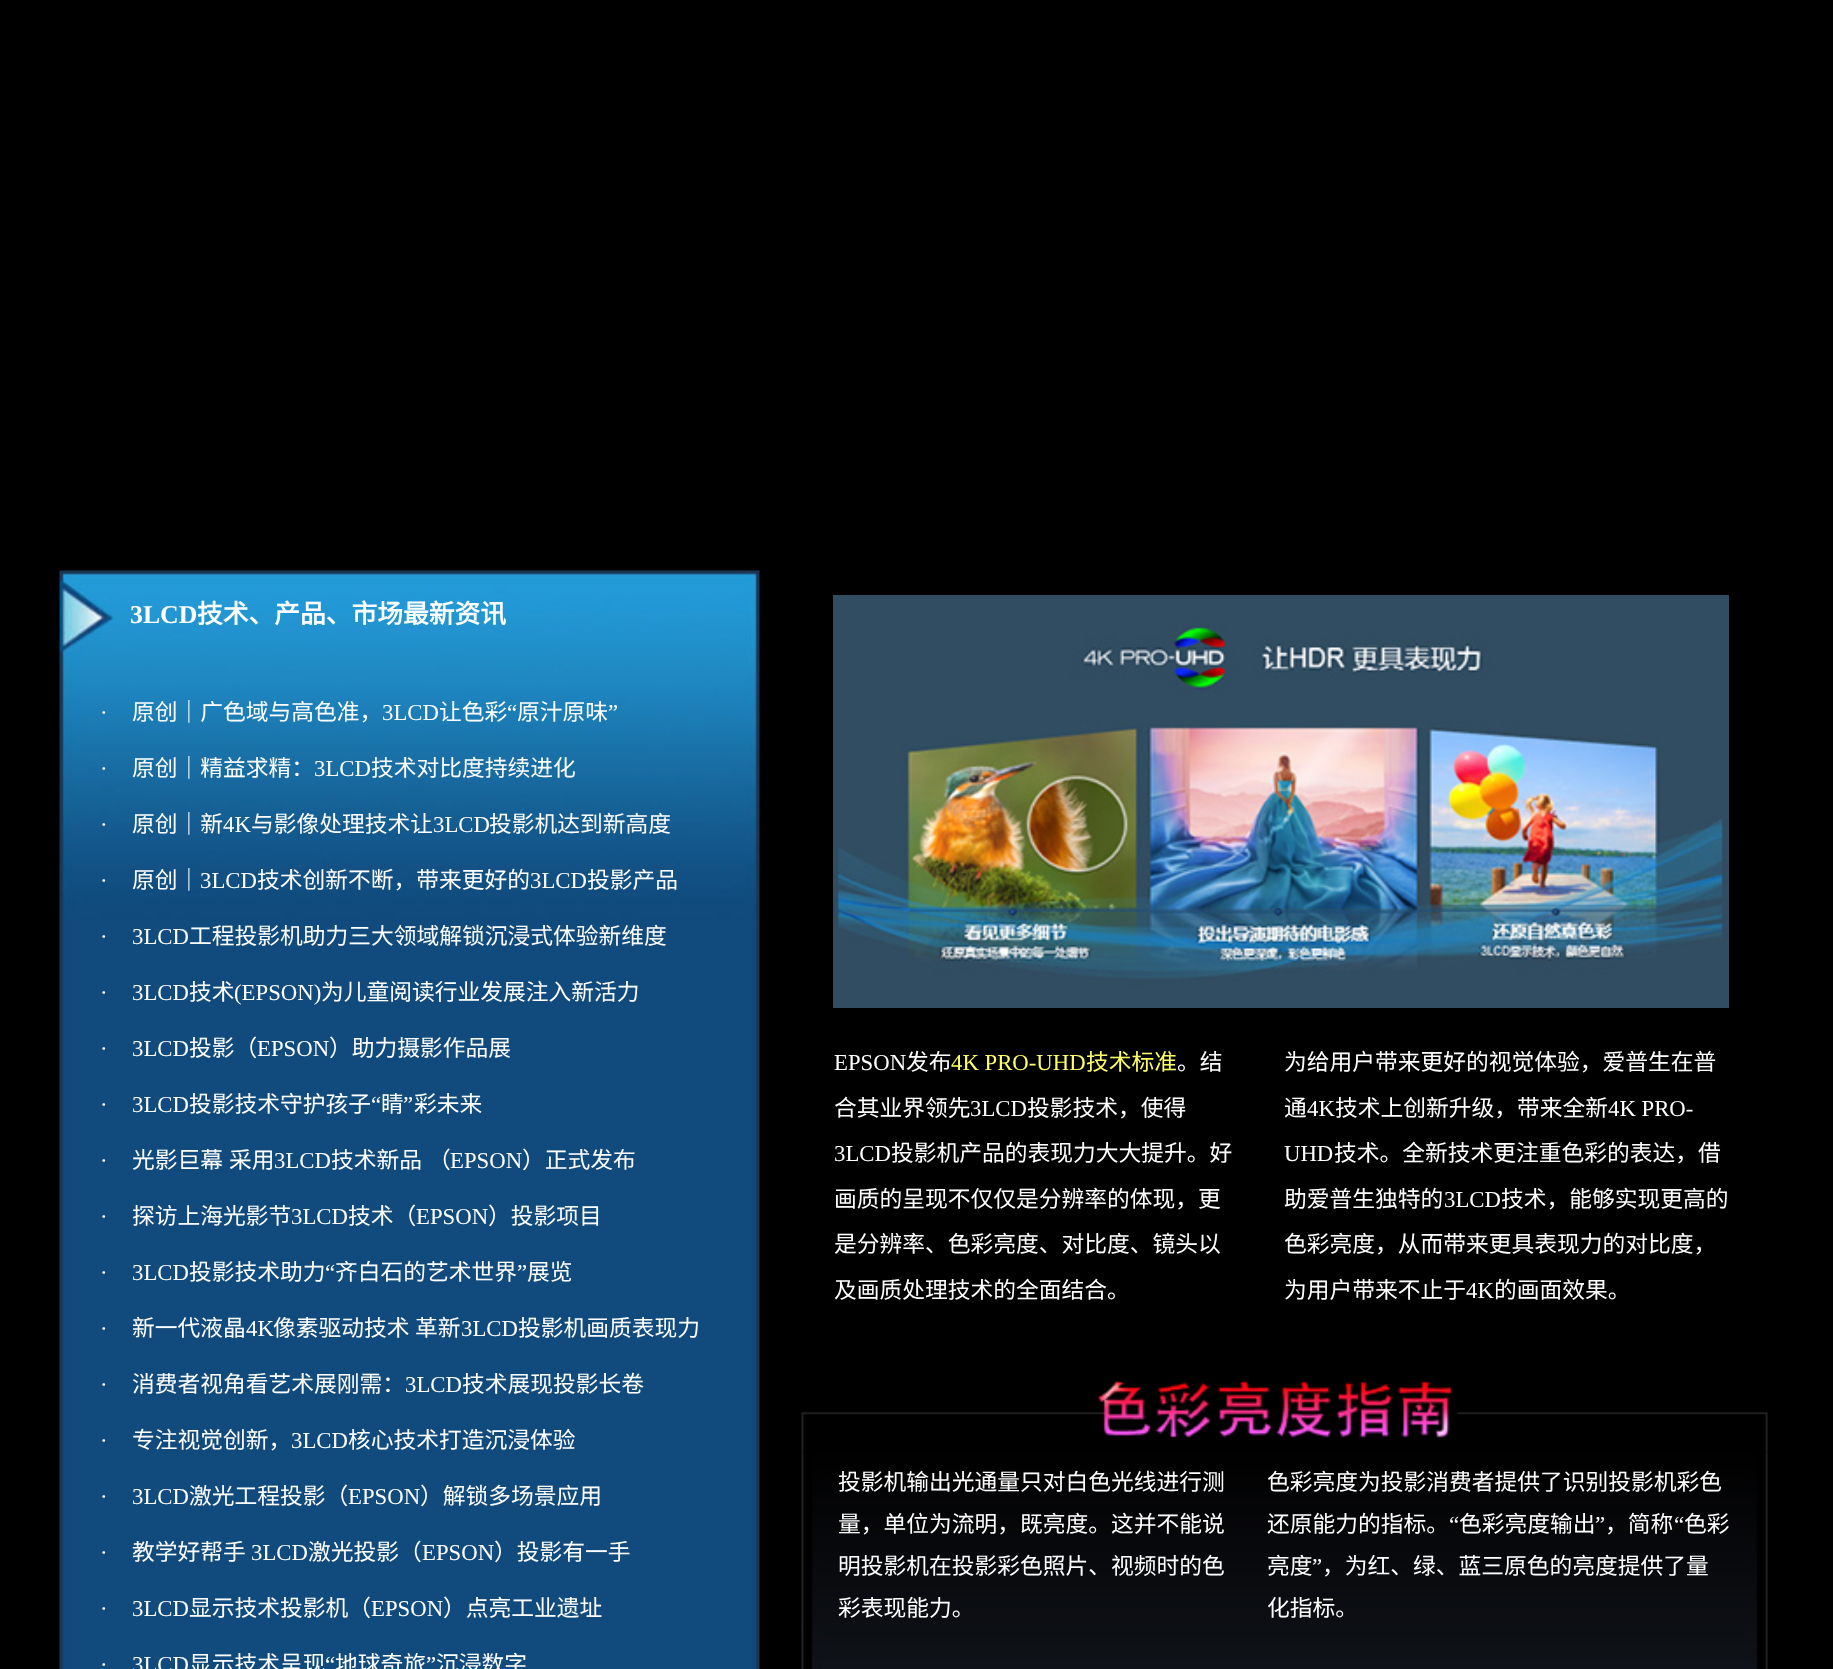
async function draw(canvas) {
	canvas.width = 1833;
	canvas.height = 1669;
	const c = canvas.getContext('2d');
	c.miterLimit = 4;
	c.fontKerning = 'normal';
	async function loadImage(src) {
		const img = new Image();
		img.src = src;
		await img.decode();
		return img;
	}

	c.fillStyle = '#000';
	c.fillRect(0, 0, 1833, 1669);
	c.drawImage(await loadImage('img1.png'), 59, 570, 701, 1099);
	c.font = 'bold 25.75px Liberation Serif';
	c.fillStyle = '#fff';
	c.fillText('3LCD', 130, 623);
	c.font = 'bold 25.75px Noto Sans CJK SC';
	c.fillText('技术、产品、市场最新资讯', 197, 623);
	c.font = '22.75px Liberation Serif';
	c.fillText('·', 100, 720);
	c.font = '22.75px Noto Sans CJK SC';
	c.fillText('原创｜广色域与高色准，', 132, 720);
	c.font = '22.75px Liberation Serif';
	c.fillText('3LCD', 382, 720);
	c.font = '22.75px Noto Sans CJK SC';
	c.fillText('让色彩', 439, 720);
	c.font = '22.75px Liberation Serif';
	c.fillText('“', 507, 720);
	c.font = '22.75px Noto Sans CJK SC';
	c.fillText('原汁原味', 517, 720);
	c.font = '22.75px Liberation Serif';
	c.fillText('”', 608, 720);
	c.fillText('·', 100, 776);
	c.font = '22.75px Noto Sans CJK SC';
	c.fillText('原创｜精益求精：', 132, 776);
	c.font = '22.75px Liberation Serif';
	c.fillText('3LCD', 314, 776);
	c.font = '22.75px Noto Sans CJK SC';
	c.fillText('技术对比度持续进化', 371, 776);
	c.font = '22.75px Liberation Serif';
	c.fillText('·', 100, 832);
	c.font = '22.75px Noto Sans CJK SC';
	c.fillText('原创｜新', 132, 832);
	c.font = '22.75px Liberation Serif';
	c.fillText('4K', 223, 832);
	c.font = '22.75px Noto Sans CJK SC';
	c.fillText('与影像处理技术让', 251, 832);
	c.font = '22.75px Liberation Serif';
	c.fillText('3LCD', 433, 832);
	c.font = '22.75px Noto Sans CJK SC';
	c.fillText('投影机达到新高度', 489, 832);
	c.font = '22.75px Liberation Serif';
	c.fillText('·', 100, 888);
	c.font = '22.75px Noto Sans CJK SC';
	c.fillText('原创｜', 132, 888);
	c.font = '22.75px Liberation Serif';
	c.fillText('3LCD', 200, 888);
	c.font = '22.75px Noto Sans CJK SC';
	c.fillText('技术创新不断，带来更好的', 257, 888);
	c.font = '22.75px Liberation Serif';
	c.fillText('3LCD', 530, 888);
	c.font = '22.75px Noto Sans CJK SC';
	c.fillText('投影产品', 587, 888);
	c.font = '22.75px Liberation Serif';
	c.fillText('·', 100, 944);
	c.fillText('3LCD', 132, 944);
	c.font = '22.75px Noto Sans CJK SC';
	c.fillText('工程投影机助力三大领域解锁沉浸式体验新维度', 189, 944);
	c.font = '22.75px Liberation Serif';
	c.fillText('·', 100, 1000);
	c.fillText('3LCD', 132, 1000);
	c.font = '22.75px Noto Sans CJK SC';
	c.fillText('技术', 189, 1000);
	c.font = '22.75px Liberation Serif';
	c.fillText('(EPSON)', 234, 1000);
	c.font = '22.75px Noto Sans CJK SC';
	c.fillText('为儿童阅读行业发展注入新活力', 321, 1000);
	c.font = '22.75px Liberation Serif';
	c.fillText('·', 100, 1056);
	c.fillText('3LCD', 132, 1056);
	c.font = '22.75px Noto Sans CJK SC';
	c.fillText('投影（', 189, 1056);
	c.font = '22.75px Liberation Serif';
	c.fillText('EPSON', 257, 1056);
	c.font = '22.75px Noto Sans CJK SC';
	c.fillText('）助力摄影作品展', 329, 1056);
	c.font = '22.75px Liberation Serif';
	c.fillText('·', 100, 1112);
	c.fillText('3LCD', 132, 1112);
	c.font = '22.75px Noto Sans CJK SC';
	c.fillText('投影技术守护孩子', 189, 1112);
	c.font = '22.75px Liberation Serif';
	c.fillText('“', 371, 1112);
	c.font = '22.75px Noto Sans CJK SC';
	c.fillText('睛', 381, 1112);
	c.font = '22.75px Liberation Serif';
	c.fillText('”', 403, 1112);
	c.font = '22.75px Noto Sans CJK SC';
	c.fillText('彩未来', 414, 1112);
	c.font = '22.75px Liberation Serif';
	c.fillText('·', 100, 1168);
	c.wordSpacing = '1px';
	c.font = '22.75px Noto Sans CJK SC';
	c.fillText('光影巨幕 采用', 132, 1168);
	c.wordSpacing = '0px';
	c.font = '22.75px Liberation Serif';
	c.fillText('3LCD', 274, 1168);
	c.font = '22.75px Noto Sans CJK SC';
	c.fillText('技术新品', 331, 1168);
	c.fillText('（', 428, 1168);
	c.font = '22.75px Liberation Serif';
	c.fillText('EPSON', 450, 1168);
	c.font = '22.75px Noto Sans CJK SC';
	c.fillText('）正式发布', 522, 1168);
	c.font = '22.75px Liberation Serif';
	c.fillText('·', 100, 1224);
	c.font = '22.75px Noto Sans CJK SC';
	c.fillText('探访上海光影节', 132, 1224);
	c.font = '22.75px Liberation Serif';
	c.fillText('3LCD', 291, 1224);
	c.font = '22.75px Noto Sans CJK SC';
	c.fillText('技术（', 348, 1224);
	c.font = '22.75px Liberation Serif';
	c.fillText('EPSON', 416, 1224);
	c.font = '22.75px Noto Sans CJK SC';
	c.fillText('）投影项目', 488, 1224);
	c.font = '22.75px Liberation Serif';
	c.fillText('·', 100, 1280);
	c.fillText('3LCD', 132, 1280);
	c.font = '22.75px Noto Sans CJK SC';
	c.fillText('投影技术助力', 189, 1280);
	c.font = '22.75px Liberation Serif';
	c.fillText('“', 325, 1280);
	c.font = '22.75px Noto Sans CJK SC';
	c.fillText('齐白石的艺术世界', 335, 1280);
	c.font = '22.75px Liberation Serif';
	c.fillText('”', 517, 1280);
	c.font = '22.75px Noto Sans CJK SC';
	c.fillText('展览', 527, 1280);
	c.font = '22.75px Liberation Serif';
	c.fillText('·', 100, 1336);
	c.font = '22.75px Noto Sans CJK SC';
	c.fillText('新一代液晶', 132, 1336);
	c.font = '22.75px Liberation Serif';
	c.fillText('4K', 246, 1336);
	c.font = '22.75px Noto Sans CJK SC';
	c.fillText('像素驱动技术', 273, 1336);
	c.fillText('革新', 415, 1336);
	c.font = '22.75px Liberation Serif';
	c.fillText('3LCD', 461, 1336);
	c.font = '22.75px Noto Sans CJK SC';
	c.fillText('投影机画质表现力', 518, 1336);
	c.font = '22.75px Liberation Serif';
	c.fillText('·', 100, 1392);
	c.font = '22.75px Noto Sans CJK SC';
	c.fillText('消费者视角看艺术展刚需：', 132, 1392);
	c.font = '22.75px Liberation Serif';
	c.fillText('3LCD', 405, 1392);
	c.font = '22.75px Noto Sans CJK SC';
	c.fillText('技术展现投影长卷', 462, 1392);
	c.font = '22.75px Liberation Serif';
	c.fillText('·', 100, 1448);
	c.font = '22.75px Noto Sans CJK SC';
	c.fillText('专注视觉创新，', 132, 1448);
	c.font = '22.75px Liberation Serif';
	c.fillText('3LCD', 291, 1448);
	c.font = '22.75px Noto Sans CJK SC';
	c.fillText('核心技术打造沉浸体验', 348, 1448);
	c.font = '22.75px Liberation Serif';
	c.fillText('·', 100, 1504);
	c.fillText('3LCD', 132, 1504);
	c.font = '22.75px Noto Sans CJK SC';
	c.fillText('激光工程投影（', 189, 1504);
	c.font = '22.75px Liberation Serif';
	c.fillText('EPSON', 348, 1504);
	c.font = '22.75px Noto Sans CJK SC';
	c.fillText('）解锁多场景应用', 420, 1504);
	c.font = '22.75px Liberation Serif';
	c.fillText('·', 100, 1560);
	c.font = '22.75px Noto Sans CJK SC';
	c.fillText('教学好帮手', 132, 1560);
	c.font = '22.75px Liberation Serif';
	c.fillText('3LCD', 251, 1560);
	c.font = '22.75px Noto Sans CJK SC';
	c.fillText('激光投影（', 308, 1560);
	c.font = '22.75px Liberation Serif';
	c.fillText('EPSON', 422, 1560);
	c.font = '22.75px Noto Sans CJK SC';
	c.fillText('）投影有一手', 494, 1560);
	c.font = '22.75px Liberation Serif';
	c.fillText('·', 100, 1616);
	c.fillText('3LCD', 132, 1616);
	c.font = '22.75px Noto Sans CJK SC';
	c.fillText('显示技术投影机（', 189, 1616);
	c.font = '22.75px Liberation Serif';
	c.fillText('EPSON', 371, 1616);
	c.font = '22.75px Noto Sans CJK SC';
	c.fillText('）点亮工业遗址', 443, 1616);
	c.font = '22.75px Liberation Serif';
	c.fillText('·', 100, 1672);
	c.fillText('3LCD', 132, 1672);
	c.font = '22.75px Noto Sans CJK SC';
	c.fillText('显示技术呈现', 189, 1672);
	c.font = '22.75px Liberation Serif';
	c.fillText('“', 325, 1672);
	c.font = '22.75px Noto Sans CJK SC';
	c.fillText('地球奇旅', 335, 1672);
	c.font = '22.75px Liberation Serif';
	c.fillText('”', 426, 1672);
	c.font = '22.75px Noto Sans CJK SC';
	c.fillText('沉浸数字', 436, 1672);
	c.drawImage(await loadImage('img2.png'), 833, 595, 896, 413);
	c.font = '22.75px Liberation Serif';
	c.fillText('EPSON', 834, 1070);
	c.font = '22.75px Noto Sans CJK SC';
	c.fillText('发布', 906, 1070);
	c.font = '22.75px Liberation Serif';
	c.fillStyle = '#ff6';
	c.fillText('4K PRO-UHD', 951, 1070);
	c.font = '22.75px Noto Sans CJK SC';
	c.fillText('技术标准', 1086, 1070);
	c.fillStyle = '#fff';
	c.fillText('。结', 1177, 1070);
	c.fillText('合其业界领先', 834, 1116);
	c.font = '22.75px Liberation Serif';
	c.fillText('3LCD', 970, 1116);
	c.font = '22.75px Noto Sans CJK SC';
	c.fillText('投影技术，使得', 1027, 1116);
	c.font = '22.75px Liberation Serif';
	c.fillText('3LCD', 834, 1161);
	c.font = '22.75px Noto Sans CJK SC';
	for (const [text, x, y] of [
		['投影机产品的表现力大大提升。好', 891, 1161],
		['画质的呈现不仅仅是分辨率的体现，更', 834, 1207],
		['是分辨率、色彩亮度、对比度、镜头以', 834, 1252],
		['及画质处理技术的全面结合。', 834, 1298],
		['为给用户带来更好的视觉体验，爱普生在普', 1284, 1070],
		['通', 1284, 1116],
	]) {
		c.fillText(text, x, y);
	}
	c.font = '22.75px Liberation Serif';
	c.fillText('4K', 1307, 1116);
	c.font = '22.75px Noto Sans CJK SC';
	c.fillText('技术上创新升级，带来全新', 1335, 1116);
	c.font = '22.75px Liberation Serif';
	c.fillText('4K PRO-', 1608, 1116);
	c.fillText('UHD', 1284, 1161);
	c.font = '22.75px Noto Sans CJK SC';
	c.fillText('技术。全新技术更注重色彩的表达，借', 1334, 1161);
	c.fillText('助爱普生独特的', 1284, 1207);
	c.font = '22.75px Liberation Serif';
	c.fillText('3LCD', 1444, 1207);
	c.font = '22.75px Noto Sans CJK SC';
	for (const [text, x, y] of [
		['技术，能够实现更高的', 1501, 1207],
		['色彩亮度，从而带来更具表现力的对比度，', 1284, 1252],
		['为用户带来不止于', 1284, 1298],
	]) {
		c.fillText(text, x, y);
	}
	c.font = '22.75px Liberation Serif';
	c.fillText('4K', 1466, 1298);
	c.font = '22.75px Noto Sans CJK SC';
	c.fillText('的画面效果。', 1494, 1298);
	c.drawImage(await loadImage('img4.png'), 801, 1452, 967, 217);
	c.drawImage(await loadImage('img3.png'), 801, 1380, 967, 73);
	for (const [text, x, y] of [
		['投影机输出光通量只对白色光线进行测', 838, 1490],
		['量，单位为流明，既亮度。这并不能说', 838, 1532],
		['明投影机在投影彩色照片、视频时的色', 838, 1574],
		['彩表现能力。', 838, 1616],
		['色彩亮度为投影消费者提供了识别投影机彩色', 1267, 1490],
		['还原能力的指标。', 1267, 1532],
	]) {
		c.fillText(text, x, y);
	}
	c.font = '22.75px Liberation Serif';
	c.fillText('“', 1449, 1532);
	c.font = '22.75px Noto Sans CJK SC';
	c.fillText('色彩亮度输出', 1459, 1532);
	c.font = '22.75px Liberation Serif';
	c.fillText('”', 1595, 1532);
	c.font = '22.75px Noto Sans CJK SC';
	c.fillText('，简称', 1605, 1532);
	c.font = '22.75px Liberation Serif';
	c.fillText('“', 1674, 1532);
	c.font = '22.75px Noto Sans CJK SC';
	c.fillText('色彩', 1684, 1532);
	c.fillText('亮度', 1267, 1574);
	c.font = '22.75px Liberation Serif';
	c.fillText('”', 1312, 1574);
	c.font = '22.75px Noto Sans CJK SC';
	c.fillText('，为红、绿、蓝三原色的亮度提供了量', 1322, 1574);
	c.fillText('化指标。', 1267, 1616);
}

draw(document.querySelector('canvas'));
